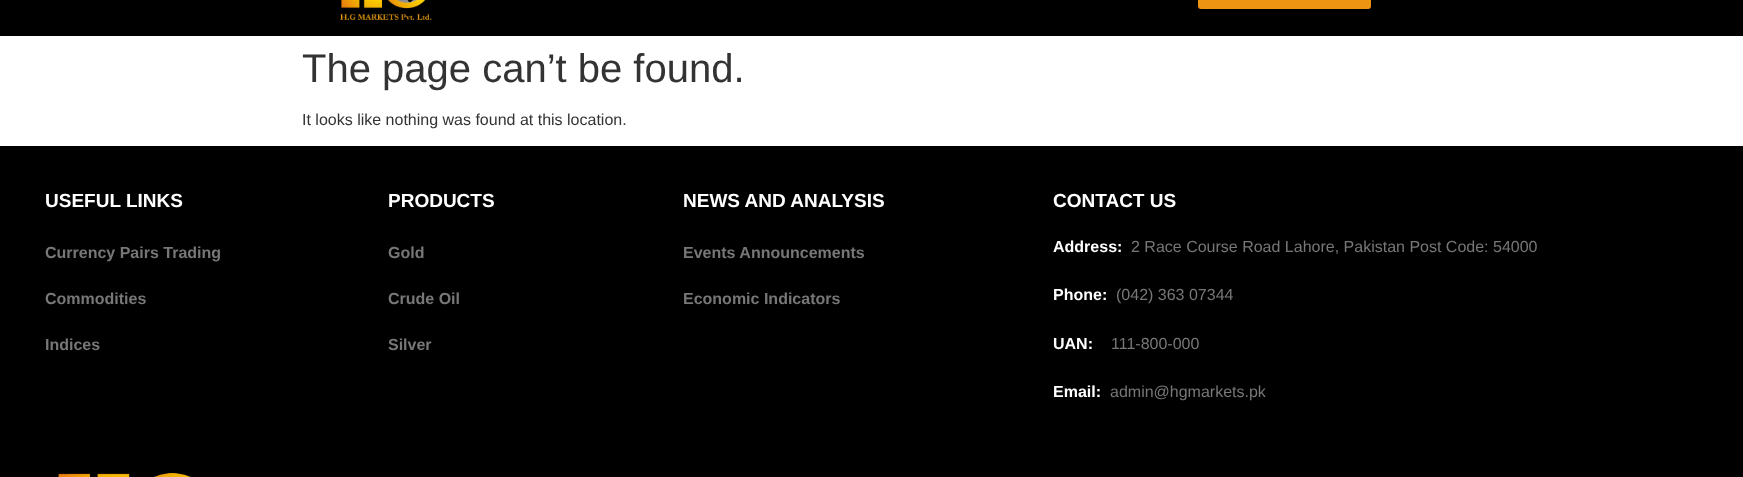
async function draw(canvas) {
	canvas.width = 1743;
	canvas.height = 477;
	const c = canvas.getContext('2d');
	c.miterLimit = 4;
	c.fontKerning = 'normal';
	async function loadImage(src) {
		const img = new Image();
		img.src = src;
		await img.decode();
		return img;
	}

	c.fillStyle = '#fff';
	c.fillRect(0, 0, 1743, 477);
	c.fillStyle = '#000';
	c.fillRect(0, 0, 1743, 36);
	c.drawImage(await loadImage('img1.png'), 340, 0, 92, 20);
	c.fillStyle = '#ed9412';
	c.beginPath();
	c.roundRect(1198, -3, 173, 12, 3);
	c.fill();
	c.font = '40px Liberation Sans';
	c.fillStyle = '#333';
	c.fillText('The page can’t be found.', 302, 82);
	c.font = '16px Liberation Sans';
	c.fillText('It looks like nothing was found at this location.', 302, 125);
	c.fillStyle = '#000';
	c.fillRect(0, 146, 1743, 331);
	c.font = 'bold 19px Liberation Sans';
	c.fillStyle = '#fff';
	c.fillText('USEFUL LINKS', 45, 207);
	c.font = 'bold 16px Liberation Sans';
	c.fillStyle = '#777';
	for (const [text, x, y] of [
		['Currency Pairs Trading', 45, 258],
		['Commodities', 45, 304],
		['Indices', 45, 350],
	]) {
		c.fillText(text, x, y);
	}
	c.font = 'bold 19px Liberation Sans';
	c.fillStyle = '#fff';
	c.fillText('PRODUCTS', 388, 207);
	c.font = 'bold 16px Liberation Sans';
	c.fillStyle = '#777';
	for (const [text, x, y] of [
		['Gold', 388, 258],
		['Crude Oil', 388, 304],
		['Silver', 388, 350],
	]) {
		c.fillText(text, x, y);
	}
	c.font = 'bold 19px Liberation Sans';
	c.fillStyle = '#fff';
	c.fillText('NEWS AND ANALYSIS', 683, 207);
	c.font = 'bold 16px Liberation Sans';
	c.fillStyle = '#777';
	c.fillText('Events Announcements', 683, 258);
	c.fillText('Economic Indicators', 683, 304);
	c.font = 'bold 19px Liberation Sans';
	c.fillStyle = '#fff';
	c.fillText('CONTACT US', 1053, 207);
	c.font = 'bold 16px Liberation Sans';
	c.fillText('Address:', 1053, 252);
	c.font = '16px Liberation Sans';
	c.fillStyle = '#777';
	c.fillText('2 Race Course Road Lahore, Pakistan Post Code: 54000', 1131, 252);
	c.font = 'bold 16px Liberation Sans';
	c.fillStyle = '#fff';
	c.fillText('Phone:', 1053, 300);
	c.font = '16px Liberation Sans';
	c.fillStyle = '#777';
	c.fillText('(042) 363 07344', 1116, 300);
	c.font = 'bold 16px Liberation Sans';
	c.fillStyle = '#fff';
	c.fillText('UAN:', 1053, 349);
	c.font = '16px Liberation Sans';
	c.fillStyle = '#777';
	c.fillText('111-800-000', 1111, 349);
	c.font = 'bold 16px Liberation Sans';
	c.fillStyle = '#fff';
	c.fillText('Email:', 1053, 397);
	c.font = '16px Liberation Sans';
	c.fillStyle = '#777';
	c.fillText('admin@hgmarkets.pk', 1110, 397);
	c.drawImage(await loadImage('img2.png'), 58, 473, 133, 4);
}

draw(document.querySelector('canvas'));
